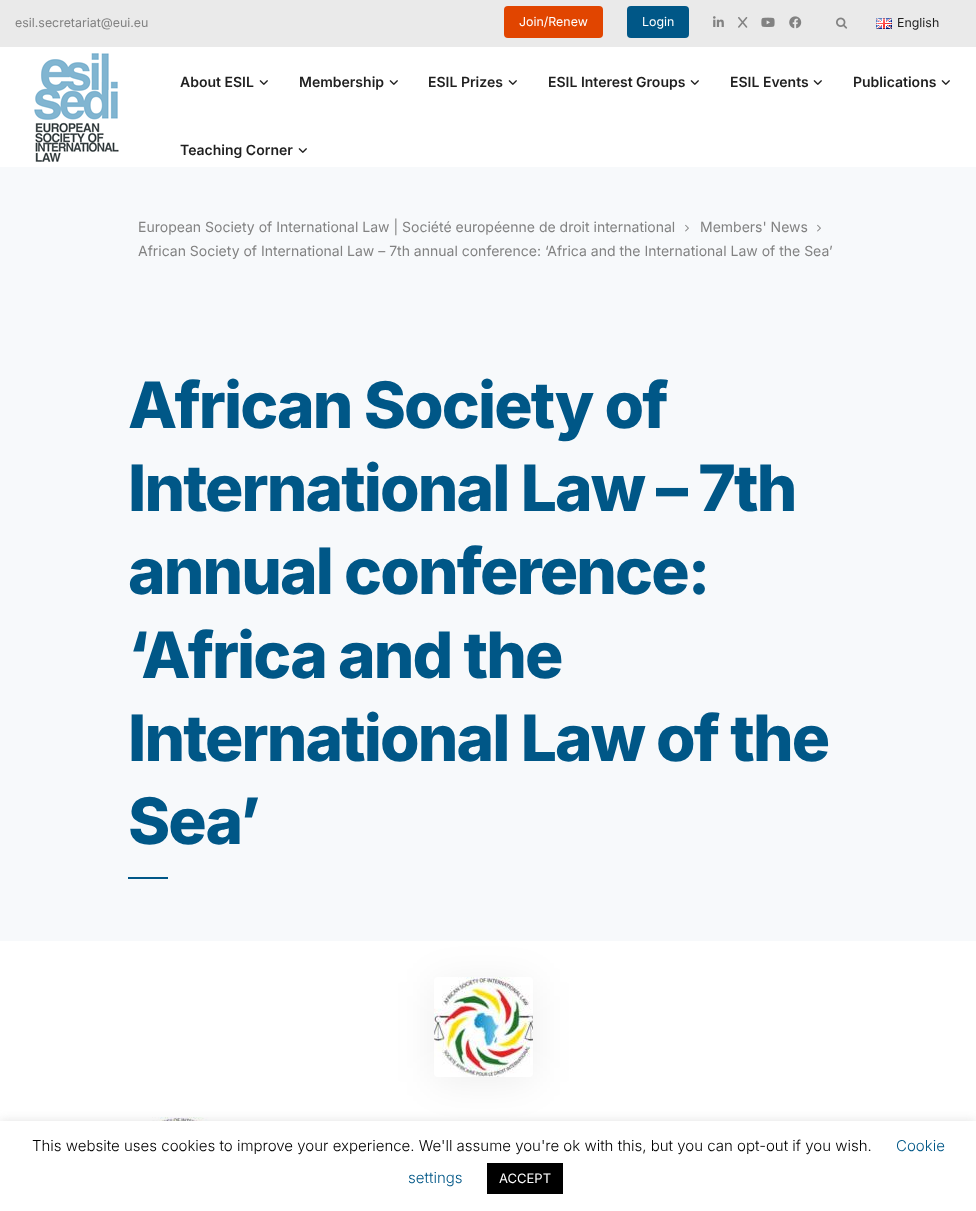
async function draw(canvas) {
	canvas.width = 976;
	canvas.height = 1211;
	const c = canvas.getContext('2d');
	c.miterLimit = 4;
	c.fontKerning = 'normal';
	async function loadImage(src) {
		const img = new Image();
		img.src = src;
		await img.decode();
		return img;
	}

	c.fillStyle = '#fff';
	c.fillRect(0, 0, 976, 1211);
	c.fillStyle = '#eaeaea';
	c.fillRect(0, 0, 976, 47);
	c.font = '12.4px Inter';
	c.fillStyle = '#828282';
	c.fillText('esil.secretariat@eui.eu', 15, 27);
	c.fillStyle = '#e14500';
	c.beginPath();
	c.roundRect(504, 6, 99, 32, 4);
	c.fill();
	c.fillStyle = '#fff';
	c.fillText('Join/Renew', 519, 26);
	c.fillStyle = '#005787';
	c.beginPath();
	c.roundRect(627, 6, 62, 32, 4);
	c.fill();
	c.fillStyle = '#fff';
	c.fillText('Login', 642, 26);
	c.drawImage(await loadImage('img1.png'), 713, 16, 11, 11);
	c.drawImage(await loadImage('img2.png'), 738, 17, 10, 11);
	c.drawImage(await loadImage('img3.png'), 761, 17, 14, 10);
	c.drawImage(await loadImage('img4.png'), 789, 16, 13, 13);
	c.drawImage(await loadImage('img5.png'), 836, 17, 12, 12);
	c.drawImage(await loadImage('img6.png'), 876, 18, 16, 11);
	c.fillStyle = '#1f1f1f';
	c.fillText('English', 897, 27);
	c.drawImage(await loadImage('img7.png'), 34, 53, 85, 109);
	c.font = '600 14px Inter';
	c.fillText('About ESIL', 180, 87);
	c.drawImage(await loadImage('img8.png'), 259, 80, 9, 5);
	c.fillText('Membership', 299, 87);
	c.drawImage(await loadImage('img8.png'), 389, 80, 9, 5);
	c.fillText('ESIL Prizes', 428, 87);
	c.drawImage(await loadImage('img8.png'), 508, 80, 9, 5);
	c.fillText('ESIL Interest Groups', 548, 87);
	c.drawImage(await loadImage('img8.png'), 690, 80, 9, 5);
	c.fillText('ESIL Events', 730, 87);
	c.drawImage(await loadImage('img8.png'), 813, 80, 9, 5);
	c.fillText('Publications', 853, 87);
	c.drawImage(await loadImage('img8.png'), 941, 80, 9, 5);
	c.fillText('Teaching Corner', 180, 155);
	c.drawImage(await loadImage('img8.png'), 298, 148, 9, 5);
	c.fillStyle = '#f7f9fb';
	c.fillRect(0, 167, 976, 774);
	c.font = '14px Inter';
	c.fillStyle = '#828282';
	c.fillText('European Society of International Law | Société européenne de droit international', 138, 232);
	c.drawImage(await loadImage('img9.png'), 685, 224, 4, 8);
	c.fillText('Members\' News', 700, 232);
	c.drawImage(await loadImage('img9.png'), 817, 224, 4, 8);
	c.fillText('African Society of International Law – 7th annual conference: ‘Africa and the International Law of the Sea’', 138, 256);
	c.letterSpacing = '-1.9px';
	c.font = '800 64px Inter';
	c.fillStyle = '#005787';
	for (const [text, x, y] of [
		['African Society of', 128, 428],
		['International Law – 7th', 128, 511],
		['annual conference:', 128, 594],
		['‘Africa and the', 128, 678],
		['International Law of the', 128, 761],
		['Sea’', 128, 844],
	]) {
		c.fillText(text, x, y);
	}
	c.fillRect(128, 877, 40, 2);
	c.drawImage(await loadImage('img10.png'), 128, 1117, 99, 4);
	c.fillStyle = '#00000012';
	c.filter = 'blur(20px)';
	c.beginPath();
	c.roundRect(434, 982, 99, 100, 4);
	c.fill();
	c.filter = 'none';
	c.drawImage(await loadImage('img11.png'), 434, 977, 99, 100);
	c.fillStyle = '#acabab4d';
	c.filter = 'blur(5px)';
	c.beginPath();
	c.rect(0, 1120, 976, 90);
	c.fill();
	c.filter = 'none';
	c.fillStyle = '#fff';
	c.fillRect(0, 1121, 976, 90);
	c.letterSpacing = '0px';
	c.font = '300 15px Inter';
	c.fillStyle = '#000';
	c.fillText('This website uses cookies to improve your experience. We\'ll assume you\'re ok with this, but you can opt-out if you wish.', 32, 1151);
	c.fillStyle = '#005787';
	c.fillText('Cookie', 896, 1151);
	c.fillText('settings', 408, 1183);
	c.fillStyle = '#000';
	c.fillRect(487, 1163, 76, 31);
	c.font = '13px Inter';
	c.fillStyle = '#fff';
	c.fillText('ACCEPT', 499, 1183);
}

draw(document.querySelector('canvas'));
